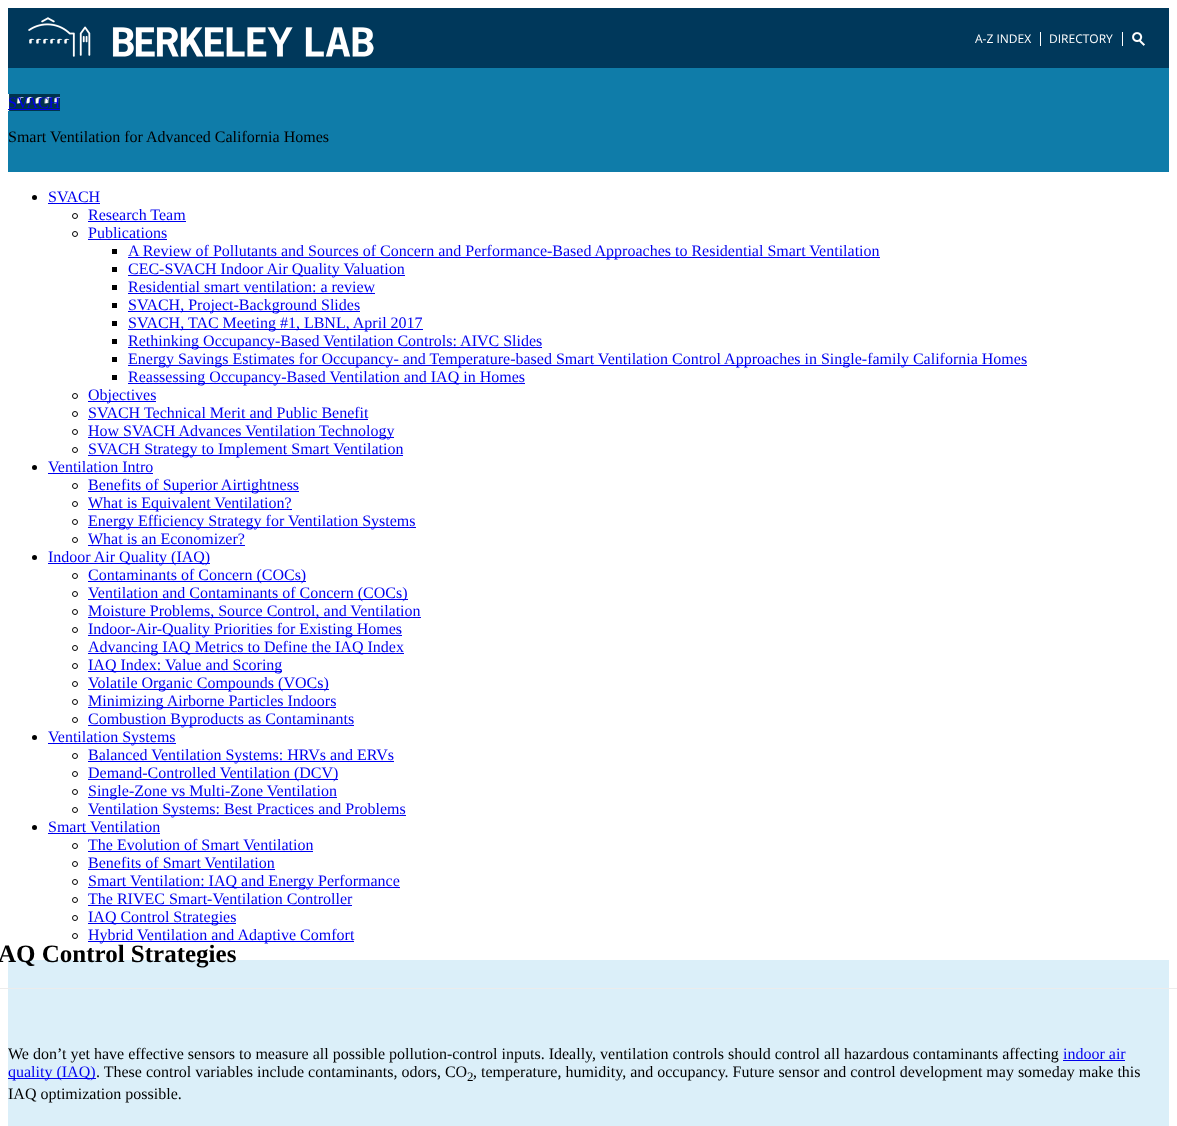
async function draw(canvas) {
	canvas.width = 1177;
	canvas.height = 1126;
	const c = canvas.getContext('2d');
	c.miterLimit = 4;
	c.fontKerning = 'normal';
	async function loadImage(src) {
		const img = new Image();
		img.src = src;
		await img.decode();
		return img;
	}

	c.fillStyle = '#fff';
	c.fillRect(0, 0, 1177, 1126);
	c.fillStyle = '#00385b';
	c.fillRect(8, 8, 1161, 60);
	c.drawImage(await loadImage('img1.png'), 28, 17, 346, 40);
	c.fillStyle = '#fff';
	c.fillRect(1040, 32, 1, 14);
	c.font = '12px Open Sans';
	c.fillText('A-Z INDEX', 975, 43);
	c.fillRect(1122, 32, 1, 14);
	c.fillText('DIRECTORY', 1049, 43);
	c.drawImage(await loadImage('img2.png'), 1132, 32, 13, 14);
	c.fillStyle = '#0f7ca9';
	c.fillRect(8, 68, 1161, 104);
	c.drawImage(await loadImage('img3.png'), 8, 94, 52, 17);
	c.font = '16px Liberation Serif';
	c.fillStyle = '#00e';
	c.fillText('SVACH', 8, 108);
	c.fillRect(8, 109, 52, 1);
	c.fillStyle = '#000';
	c.fillText('Smart Ventilation for Advanced California Homes', 8, 142);
	c.beginPath();
	c.arc(34.5, 197.5, 2.5, 0, 2 * Math.PI);
	c.fill();
	c.fillStyle = '#00e';
	c.fillText('SVACH', 48, 202);
	c.fillRect(48, 203, 52, 1);
	c.beginPath();
	c.arc(75, 216, 2.5, 0, 2 * Math.PI);
	c.strokeStyle = '#000';
	c.stroke();
	c.fillText('Research Team', 88, 220);
	c.fillRect(88, 221, 98, 1);
	c.beginPath();
	c.arc(75, 234, 2.5, 0, 2 * Math.PI);
	c.stroke();
	c.fillText('Publications', 88, 238);
	for (const [x, y, w, h, color] of [
		[88, 239, 79, 1, '#00e'],
		[112, 249, 5, 5, '#000'],
		[128, 257, 752, 1, '#00e'],
	]) {
		c.fillStyle = color;
		c.fillRect(x, y, w, h);
	}
	c.fillText('A Review of Pollutants and Sources of Concern and Performance-Based Approaches to Residential Smart Ventilation', 128, 256);
	c.fillStyle = '#000';
	c.fillRect(112, 267, 5, 5);
	c.fillStyle = '#00e';
	c.fillRect(128, 275, 277, 1);
	c.fillText('CEC-SVACH Indoor Air Quality Valuation', 128, 274);
	c.fillStyle = '#000';
	c.fillRect(112, 285, 5, 5);
	c.fillStyle = '#00e';
	c.fillText('Residential smart ventilation: a review', 128, 292);
	for (const [x, y, w, h, color] of [
		[128, 293, 247, 1, '#00e'],
		[112, 303, 5, 5, '#000'],
		[128, 311, 232, 1, '#00e'],
	]) {
		c.fillStyle = color;
		c.fillRect(x, y, w, h);
	}
	c.fillText('SVACH, Project-Background Slides', 128, 310);
	c.fillStyle = '#000';
	c.fillRect(112, 321, 5, 5);
	c.fillStyle = '#00e';
	c.fillRect(128, 329, 295, 1);
	c.fillText('SVACH, TAC Meeting #1, LBNL, April 2017', 128, 328);
	c.fillStyle = '#000';
	c.fillRect(112, 339, 5, 5);
	c.fillStyle = '#00e';
	c.fillRect(128, 347, 414, 1);
	c.fillText('Rethinking Occupancy-Based Ventilation Controls: AIVC Slides', 128, 346);
	c.fillStyle = '#000';
	c.fillRect(112, 357, 5, 5);
	c.fillStyle = '#00e';
	c.fillRect(128, 365, 899, 1);
	c.fillText('Energy Savings Estimates for Occupancy- and Temperature-based Smart Ventilation Control Approaches in Single-family California Homes', 128, 364);
	c.fillStyle = '#000';
	c.fillRect(112, 375, 5, 5);
	c.fillStyle = '#00e';
	c.fillRect(128, 383, 397, 1);
	c.fillText('Reassessing Occupancy-Based Ventilation and IAQ in Homes', 128, 382);
	c.beginPath();
	c.arc(75, 396, 2.5, 0, 2 * Math.PI);
	c.stroke();
	c.fillRect(88, 401, 68, 1);
	c.fillText('Objectives', 88, 400);
	c.beginPath();
	c.arc(75, 414, 2.5, 0, 2 * Math.PI);
	c.stroke();
	c.fillText('SVACH Technical Merit and Public Benefit', 88, 418);
	c.fillRect(88, 419, 280, 1);
	c.beginPath();
	c.arc(75, 432, 2.5, 0, 2 * Math.PI);
	c.stroke();
	c.fillRect(88, 437, 306, 1);
	c.fillText('How SVACH Advances Ventilation Technology', 88, 436);
	c.beginPath();
	c.arc(75, 450, 2.5, 0, 2 * Math.PI);
	c.stroke();
	c.fillRect(88, 455, 315, 1);
	c.fillText('SVACH Strategy to Implement Smart Ventilation', 88, 454);
	c.fillStyle = '#000';
	c.beginPath();
	c.arc(34.5, 467.5, 2.5, 0, 2 * Math.PI);
	c.fill();
	c.fillStyle = '#00e';
	c.fillText('Ventilation Intro', 48, 472);
	c.fillRect(48, 473, 105, 1);
	c.beginPath();
	c.arc(75, 486, 2.5, 0, 2 * Math.PI);
	c.stroke();
	c.fillRect(88, 491, 211, 1);
	c.fillText('Benefits of Superior Airtightness', 88, 490);
	c.beginPath();
	c.arc(75, 504, 2.5, 0, 2 * Math.PI);
	c.stroke();
	c.fillRect(88, 509, 204, 1);
	c.fillText('What is Equivalent Ventilation?', 88, 508);
	c.beginPath();
	c.arc(75, 522, 2.5, 0, 2 * Math.PI);
	c.stroke();
	c.fillRect(88, 527, 328, 1);
	c.fillText('Energy Efficiency Strategy for Ventilation Systems', 88, 526);
	c.beginPath();
	c.arc(75, 540, 2.5, 0, 2 * Math.PI);
	c.stroke();
	c.fillText('What is an Economizer?', 88, 544);
	c.fillRect(88, 545, 157, 1);
	c.fillStyle = '#000';
	c.beginPath();
	c.arc(34.5, 557.5, 2.5, 0, 2 * Math.PI);
	c.fill();
	c.fillStyle = '#00e';
	c.fillRect(48, 563, 162, 1);
	c.fillText('Indoor Air Quality (IAQ)', 48, 562);
	c.beginPath();
	c.arc(75, 576, 2.5, 0, 2 * Math.PI);
	c.stroke();
	c.fillRect(88, 581, 218, 1);
	c.fillText('Contaminants of Concern (COCs)', 88, 580);
	c.beginPath();
	c.arc(75, 594, 2.5, 0, 2 * Math.PI);
	c.stroke();
	c.fillRect(88, 599, 320, 1);
	c.fillText('Ventilation and Contaminants of Concern (COCs)', 88, 598);
	c.beginPath();
	c.arc(75, 612, 2.5, 0, 2 * Math.PI);
	c.stroke();
	c.fillRect(88, 617, 333, 1);
	c.fillText('Moisture Problems, Source Control, and Ventilation', 88, 616);
	c.beginPath();
	c.arc(75, 630, 2.5, 0, 2 * Math.PI);
	c.stroke();
	c.fillRect(88, 635, 314, 1);
	c.fillText('Indoor-Air-Quality Priorities for Existing Homes', 88, 634);
	c.beginPath();
	c.arc(75, 648, 2.5, 0, 2 * Math.PI);
	c.stroke();
	c.fillRect(88, 653, 316, 1);
	c.fillText('Advancing IAQ Metrics to Define the IAQ Index', 88, 652);
	c.beginPath();
	c.arc(75, 666, 2.5, 0, 2 * Math.PI);
	c.stroke();
	c.fillRect(88, 671, 194, 1);
	c.fillText('IAQ Index: Value and Scoring', 88, 670);
	c.beginPath();
	c.arc(75, 684, 2.5, 0, 2 * Math.PI);
	c.stroke();
	c.fillRect(88, 689, 241, 1);
	c.fillText('Volatile Organic Compounds (VOCs)', 88, 688);
	c.beginPath();
	c.arc(75, 702, 2.5, 0, 2 * Math.PI);
	c.stroke();
	c.fillRect(88, 707, 248, 1);
	c.fillText('Minimizing Airborne Particles Indoors', 88, 706);
	c.beginPath();
	c.arc(75, 720, 2.5, 0, 2 * Math.PI);
	c.stroke();
	c.fillRect(88, 725, 266, 1);
	c.fillText('Combustion Byproducts as Contaminants', 88, 724);
	c.fillStyle = '#000';
	c.beginPath();
	c.arc(34.5, 737.5, 2.5, 0, 2 * Math.PI);
	c.fill();
	c.fillStyle = '#00e';
	c.fillRect(48, 743, 128, 1);
	c.fillText('Ventilation Systems', 48, 742);
	c.beginPath();
	c.arc(75, 756, 2.5, 0, 2 * Math.PI);
	c.stroke();
	c.fillRect(88, 761, 306, 1);
	c.fillText('Balanced Ventilation Systems: HRVs and ERVs', 88, 760);
	c.beginPath();
	c.arc(75, 774, 2.5, 0, 2 * Math.PI);
	c.stroke();
	c.fillRect(88, 779, 250, 1);
	c.fillText('Demand-Controlled Ventilation (DCV)', 88, 778);
	c.beginPath();
	c.arc(75, 792, 2.5, 0, 2 * Math.PI);
	c.stroke();
	c.fillRect(88, 797, 249, 1);
	c.fillText('Single-Zone vs Multi-Zone Ventilation', 88, 796);
	c.beginPath();
	c.arc(75, 810, 2.5, 0, 2 * Math.PI);
	c.stroke();
	c.fillRect(88, 815, 318, 1);
	c.fillText('Ventilation Systems: Best Practices and Problems', 88, 814);
	c.fillStyle = '#000';
	c.beginPath();
	c.arc(34.5, 827.5, 2.5, 0, 2 * Math.PI);
	c.fill();
	c.fillStyle = '#00e';
	c.fillText('Smart Ventilation', 48, 832);
	c.fillRect(48, 833, 112, 1);
	c.beginPath();
	c.arc(75, 846, 2.5, 0, 2 * Math.PI);
	c.stroke();
	c.fillText('The Evolution of Smart Ventilation', 88, 850);
	c.fillRect(88, 851, 225, 1);
	c.beginPath();
	c.arc(75, 864, 2.5, 0, 2 * Math.PI);
	c.stroke();
	c.fillText('Benefits of Smart Ventilation', 88, 868);
	c.fillRect(88, 869, 187, 1);
	c.beginPath();
	c.arc(75, 882, 2.5, 0, 2 * Math.PI);
	c.stroke();
	c.fillRect(88, 887, 312, 1);
	c.fillText('Smart Ventilation: IAQ and Energy Performance', 88, 886);
	c.beginPath();
	c.arc(75, 900, 2.5, 0, 2 * Math.PI);
	c.stroke();
	c.fillText('The RIVEC Smart-Ventilation Controller', 88, 904);
	c.fillRect(88, 905, 264, 1);
	c.beginPath();
	c.arc(75, 918, 2.5, 0, 2 * Math.PI);
	c.stroke();
	c.fillRect(88, 923, 148, 1);
	c.fillText('IAQ Control Strategies', 88, 922);
	c.beginPath();
	c.arc(75, 936, 2.5, 0, 2 * Math.PI);
	c.stroke();
	c.fillRect(88, 941, 266, 1);
	c.fillText('Hybrid Ventilation and Adaptive Comfort', 88, 940);
	c.fillStyle = '#dbeff9';
	c.fillRect(8, 960, 1161, 166);
	c.fillStyle = '#ececec';
	c.fillRect(0, 988, 1177, 1);
	c.font = 'bold 25px Liberation Serif';
	c.fillStyle = '#000';
	c.fillText('AQ Control Strategies', -2, 962);
	c.font = '16px Liberation Serif';
	c.fillText('We don’t yet have effective sensors to measure all possible pollution-control inputs. Ideally, ventilation controls should control all hazardous contaminants affecting', 8, 1059);
	c.fillStyle = '#00e';
	c.fillText('indoor air', 1063, 1059);
	c.fillRect(1063, 1060, 62, 1);
	c.fillRect(8, 1078, 88, 1);
	c.fillText('quality (IAQ)', 8, 1077);
	c.fillStyle = '#000';
	c.fillText('. These control variables include contaminants, odors, CO', 96, 1077);
	c.font = '13px Liberation Serif';
	c.fillText('2', 467, 1081);
	c.font = '16px Liberation Serif';
	c.fillText(', temperature, humidity, and occupancy. Future sensor and control development may someday make this', 473, 1077);
	c.fillText('IAQ optimization possible.', 8, 1099);
}

draw(document.querySelector('canvas'));
